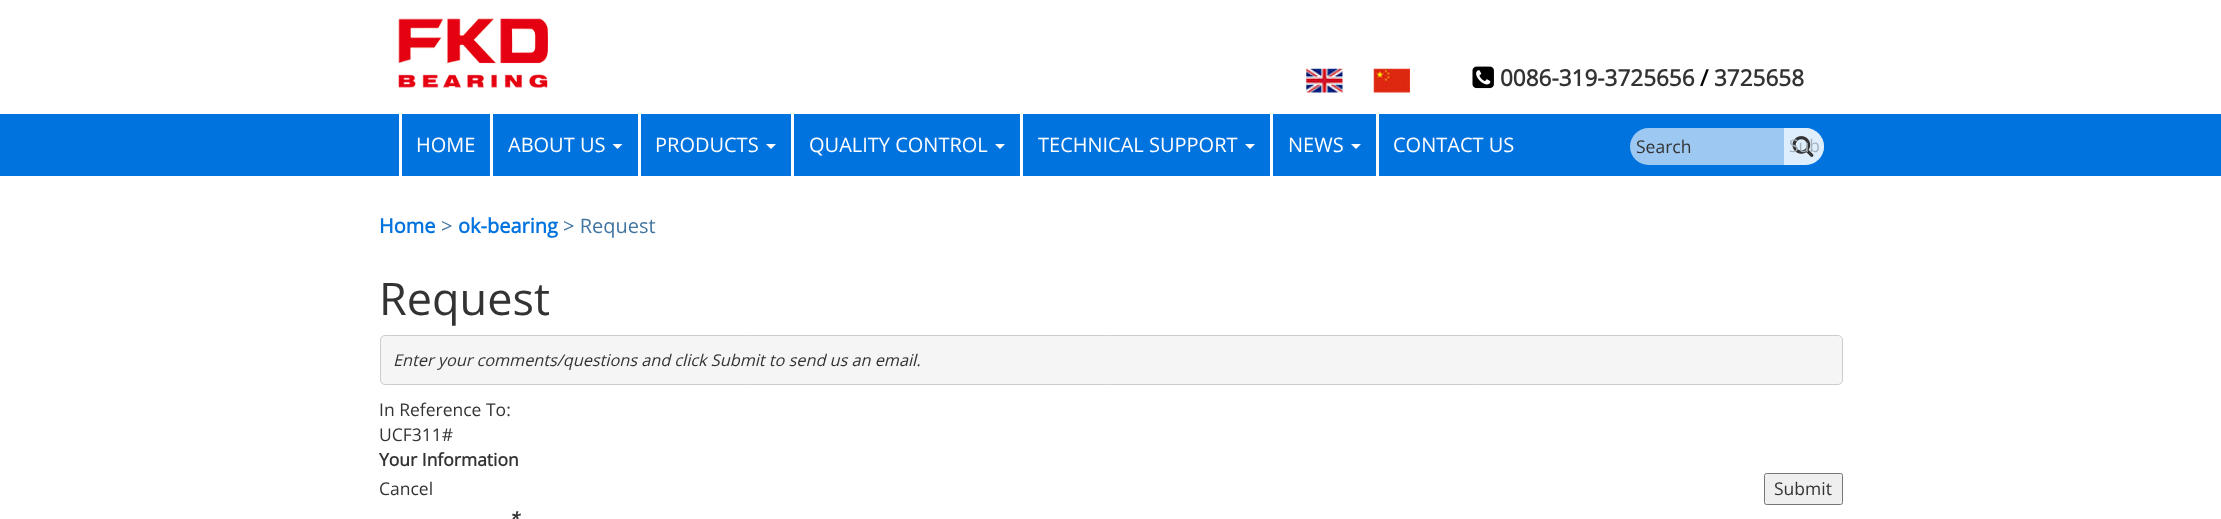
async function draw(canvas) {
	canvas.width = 2221;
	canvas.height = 519;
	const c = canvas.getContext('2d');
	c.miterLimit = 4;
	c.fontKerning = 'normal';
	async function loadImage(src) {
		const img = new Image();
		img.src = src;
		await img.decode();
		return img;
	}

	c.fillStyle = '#fff';
	c.fillRect(0, 0, 2221, 519);
	c.drawImage(await loadImage('img1.png'), 398, 18, 150, 70);
	c.drawImage(await loadImage('img2.png'), 1306, 68, 37, 25);
	c.drawImage(await loadImage('img3.png'), 1373, 68, 37, 25);
	c.drawImage(await loadImage('img4.png'), 1472, 66, 22, 23);
	c.font = 'bold 22.5px Open Sans';
	c.fillStyle = '#333';
	c.fillText('0086-319-3725656', 1500, 86);
	c.fillStyle = '#000';
	c.fillText('/', 1700, 86);
	c.fillStyle = '#333';
	c.fillText('3725658', 1714, 86);
	c.fillStyle = '#0073de';
	c.fillRect(0, 114, 2221, 62);
	c.fillStyle = '#fff';
	c.fillRect(399, 114, 3, 62);
	c.font = '20px Open Sans';
	c.fillText('HOME', 416, 152);
	c.fillRect(490, 114, 3, 62);
	c.fillText('ABOUT US', 508, 152);
	c.beginPath();
	c.moveTo(612.5, 144);
	c.lineTo(622.5, 144);
	c.lineTo(617.5, 149);
	c.closePath();
	c.fill();
	c.fillRect(638, 114, 3, 62);
	c.fillText('PRODUCTS', 655, 152);
	c.beginPath();
	c.moveTo(766, 144);
	c.lineTo(776, 144);
	c.lineTo(771, 149);
	c.closePath();
	c.fill();
	c.fillRect(791, 114, 3, 62);
	c.fillText('QUALITY CONTROL', 809, 152);
	c.beginPath();
	c.moveTo(995, 144);
	c.lineTo(1005, 144);
	c.lineTo(1000, 149);
	c.closePath();
	c.fill();
	c.fillRect(1020, 114, 3, 62);
	c.fillText('TECHNICAL SUPPORT', 1038, 152);
	c.beginPath();
	c.moveTo(1245, 144);
	c.lineTo(1255, 144);
	c.lineTo(1250, 149);
	c.closePath();
	c.fill();
	c.fillRect(1270, 114, 3, 62);
	c.fillText('NEWS', 1288, 152);
	c.beginPath();
	c.moveTo(1351, 144);
	c.lineTo(1361, 144);
	c.lineTo(1356, 149);
	c.closePath();
	c.fill();
	c.fillRect(1376, 114, 3, 62);
	c.fillText('CONTACT US', 1393, 152);
	c.fillStyle = '#9cc8f2';
	c.beginPath();
	c.roundRect(1630, 128, 194, 37, 18.5);
	c.fill();
	c.fillStyle = '#f0f8ffcc';
	c.beginPath();
	c.roundRect(1784, 128, 40, 37, [0, 18.5, 18.5, 0]);
	c.fill();
	c.drawImage(await loadImage('img5.png'), 1792, 136, 22, 21);
	c.font = '17.5px Open Sans';
	c.fillStyle = '#333';
	c.fillText('Search', 1636, 153);
	c.fillStyle = '#a7b1bb';
	c.fillText('Sub', 1789, 152);
	c.font = 'bold 20px Open Sans';
	c.fillStyle = '#0073de';
	c.fillText('Home', 379, 233);
	c.font = '20px Open Sans';
	c.fillStyle = '#4275a0';
	c.fillText('>', 441, 233);
	c.font = 'bold 20px Open Sans';
	c.fillStyle = '#0073de';
	c.fillText('ok-bearing', 458, 233);
	c.font = '20px Open Sans';
	c.fillStyle = '#4275a0';
	c.fillText('> Request', 563, 233);
	c.font = '45px Open Sans';
	c.fillStyle = '#333';
	c.fillText('Request', 379, 315);
	c.fillStyle = '#f5f5f5';
	c.beginPath();
	c.roundRect(380.5, 335.5, 1462, 49, 4.5);
	c.fill();
	c.strokeStyle = '#ccc';
	c.stroke();
	c.font = 'italic 16.25px Open Sans';
	c.fillStyle = '#333';
	c.fillText('Enter your comments/questions and click Submit to send us an email.', 393, 366);
	c.font = '17.5px Open Sans';
	c.fillText('In Reference To:', 379, 416);
	c.fillText('UCF311#', 379, 441);
	c.font = 'bold 17.5px Open Sans';
	c.fillText('Your Information', 379, 466);
	c.font = '17.5px Open Sans';
	c.fillText('Cancel', 379, 495);
	c.fillStyle = '#efefef';
	c.beginPath();
	c.roundRect(1764.5, 473.5, 78, 31, 2);
	c.fill();
	c.strokeStyle = '#767676';
	c.stroke();
	c.fillStyle = '#333';
	c.fillText('Submit', 1774, 495);
	c.font = 'italic bold 17.5px Open Sans';
	c.fillText('*', 509, 525);
}

draw(document.querySelector('canvas'));
